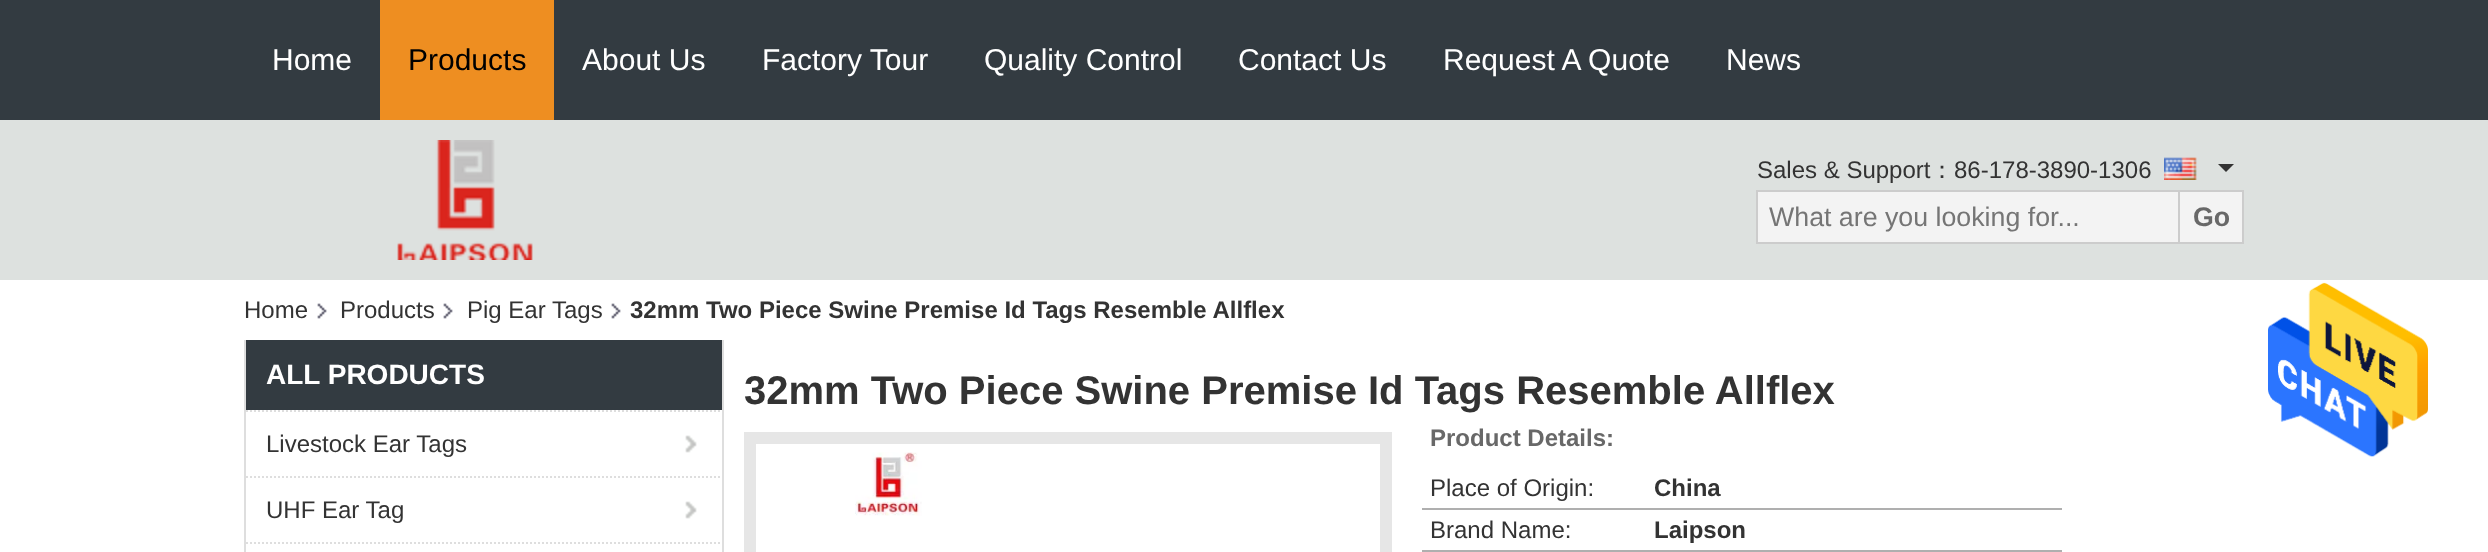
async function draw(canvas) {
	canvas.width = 2488;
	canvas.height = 552;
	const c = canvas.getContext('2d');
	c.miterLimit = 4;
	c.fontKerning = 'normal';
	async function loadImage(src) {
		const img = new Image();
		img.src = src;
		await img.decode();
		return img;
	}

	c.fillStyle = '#fff';
	c.fillRect(0, 0, 2488, 552);
	c.fillStyle = '#333b41';
	c.fillRect(0, 0, 2488, 120);
	c.font = '30px Liberation Sans';
	c.fillStyle = '#fff';
	c.fillText('Home', 272, 70);
	c.fillStyle = '#ee8e21';
	c.fillRect(380, 0, 174, 120);
	c.fillStyle = '#000';
	c.fillText('Products', 408, 70);
	c.fillStyle = '#fff';
	for (const [text, x, y] of [
		['About Us', 582, 70],
		['Factory Tour', 762, 70],
		['Quality Control', 984, 70],
		['Contact Us', 1238, 70],
		['Request A Quote', 1443, 70],
		['News', 1726, 70],
	]) {
		c.fillText(text, x, y);
	}
	c.fillStyle = '#dde1df';
	c.fillRect(0, 120, 2488, 160);
	c.drawImage(await loadImage('img1.png'), 397, 140, 136, 120);
	c.font = '24px Liberation Sans';
	c.fillStyle = '#333';
	c.fillText('Sales & Support', 1757, 178);
	c.font = '500 24px WenQuanYi Zen Hei';
	c.fillText('：', 1930, 178);
	c.font = '24px Liberation Sans';
	c.fillText('86-178-3890-1306', 1954, 178);
	c.drawImage(await loadImage('img2.png'), 2164, 157, 33, 23);
	c.beginPath();
	c.moveTo(2218, 164);
	c.lineTo(2234, 164);
	c.lineTo(2226, 172);
	c.closePath();
	c.fill();
	for (const [x, y, w, h, color] of [
		[1758, 192, 420, 50, '#f3f3f3'],
		[1756, 190, 422, 2, '#ccc'],
		[1756, 242, 422, 2, '#ccc'],
		[1756, 190, 2, 54, '#ccc'],
	]) {
		c.fillStyle = color;
		c.fillRect(x, y, w, h);
	}
	c.font = '26.75px Liberation Sans';
	c.fillStyle = '#757575';
	c.fillText('What are you looking for...', 1769, 226);
	c.fillStyle = '#f3f3f3';
	c.beginPath();
	c.rect(2179, 191, 64, 52);
	c.fill();
	c.strokeStyle = '#ccc';
	c.lineWidth = 2;
	c.stroke();
	c.font = 'bold 26.75px Liberation Sans';
	c.fillStyle = '#686868';
	c.fillText('Go', 2193, 226);
	c.font = '24px Liberation Sans';
	c.fillStyle = '#333';
	c.fillText('Home', 244, 318);
	c.drawImage(await loadImage('img3.png'), 317, 303, 10, 16);
	c.fillText('Products', 340, 318);
	c.drawImage(await loadImage('img3.png'), 443, 303, 10, 16);
	c.fillText('Pig Ear Tags', 467, 318);
	c.drawImage(await loadImage('img3.png'), 611, 303, 10, 16);
	c.font = 'bold 24px Liberation Sans';
	c.fillText('32mm Two Piece Swine Premise Id Tags Resemble Allflex', 630, 318);
	for (const [x, y, w, h, color] of [
		[722, 340, 2, 212, '#dedede'],
		[244, 340, 2, 212, '#dedede'],
		[246, 340, 476, 70, '#333b41'],
	]) {
		c.fillStyle = color;
		c.fillRect(x, y, w, h);
	}
	c.font = 'bold 28px Liberation Sans';
	c.fillStyle = '#fff';
	c.fillText('ALL PRODUCTS', 266, 384);
	c.beginPath();
	c.moveTo(246, 411);
	c.lineTo(722, 411);
	c.strokeStyle = '#dedede';
	c.setLineDash([2, 2]);
	c.stroke();
	c.font = '24px Liberation Sans';
	c.fillStyle = '#333';
	c.fillText('Livestock Ear Tags', 266, 452);
	c.drawImage(await loadImage('img4.png'), 685, 435, 12, 18);
	c.beginPath();
	c.moveTo(246, 477);
	c.lineTo(722, 477);
	c.stroke();
	c.fillText('UHF Ear Tag', 266, 518);
	c.drawImage(await loadImage('img4.png'), 685, 501, 12, 18);
	c.beginPath();
	c.moveTo(246, 543);
	c.lineTo(722, 543);
	c.stroke();
	c.font = 'bold 40px Liberation Sans';
	c.fillText('32mm Two Piece Swine Premise Id Tags Resemble Allflex', 744, 404);
	c.strokeStyle = '#e6e6e6';
	c.lineWidth = 12;
	c.setLineDash([]);
	c.strokeRect(750, 438, 636, 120);
	c.drawImage(await loadImage('img5.png'), 855, 452, 67, 64);
	c.font = 'bold 24px Liberation Sans';
	c.fillStyle = '#686868';
	c.fillText('Product Details:', 1430, 446);
	c.font = '24px Liberation Sans';
	c.fillStyle = '#333';
	c.fillText('Place of Origin:', 1430, 496);
	c.fillStyle = '#afafaf';
	c.fillRect(1422, 508, 640, 2);
	c.font = 'bold 24px Liberation Sans';
	c.fillStyle = '#333';
	c.fillText('China', 1654, 496);
	c.font = '24px Liberation Sans';
	c.fillText('Brand Name:', 1430, 538);
	c.fillStyle = '#afafaf';
	c.fillRect(1422, 550, 640, 2);
	c.font = 'bold 24px Liberation Sans';
	c.fillStyle = '#333';
	c.fillText('Laipson', 1654, 538);
	c.drawImage(await loadImage('img6.png'), 2268, 282, 160, 175);
}

draw(document.querySelector('canvas'));
